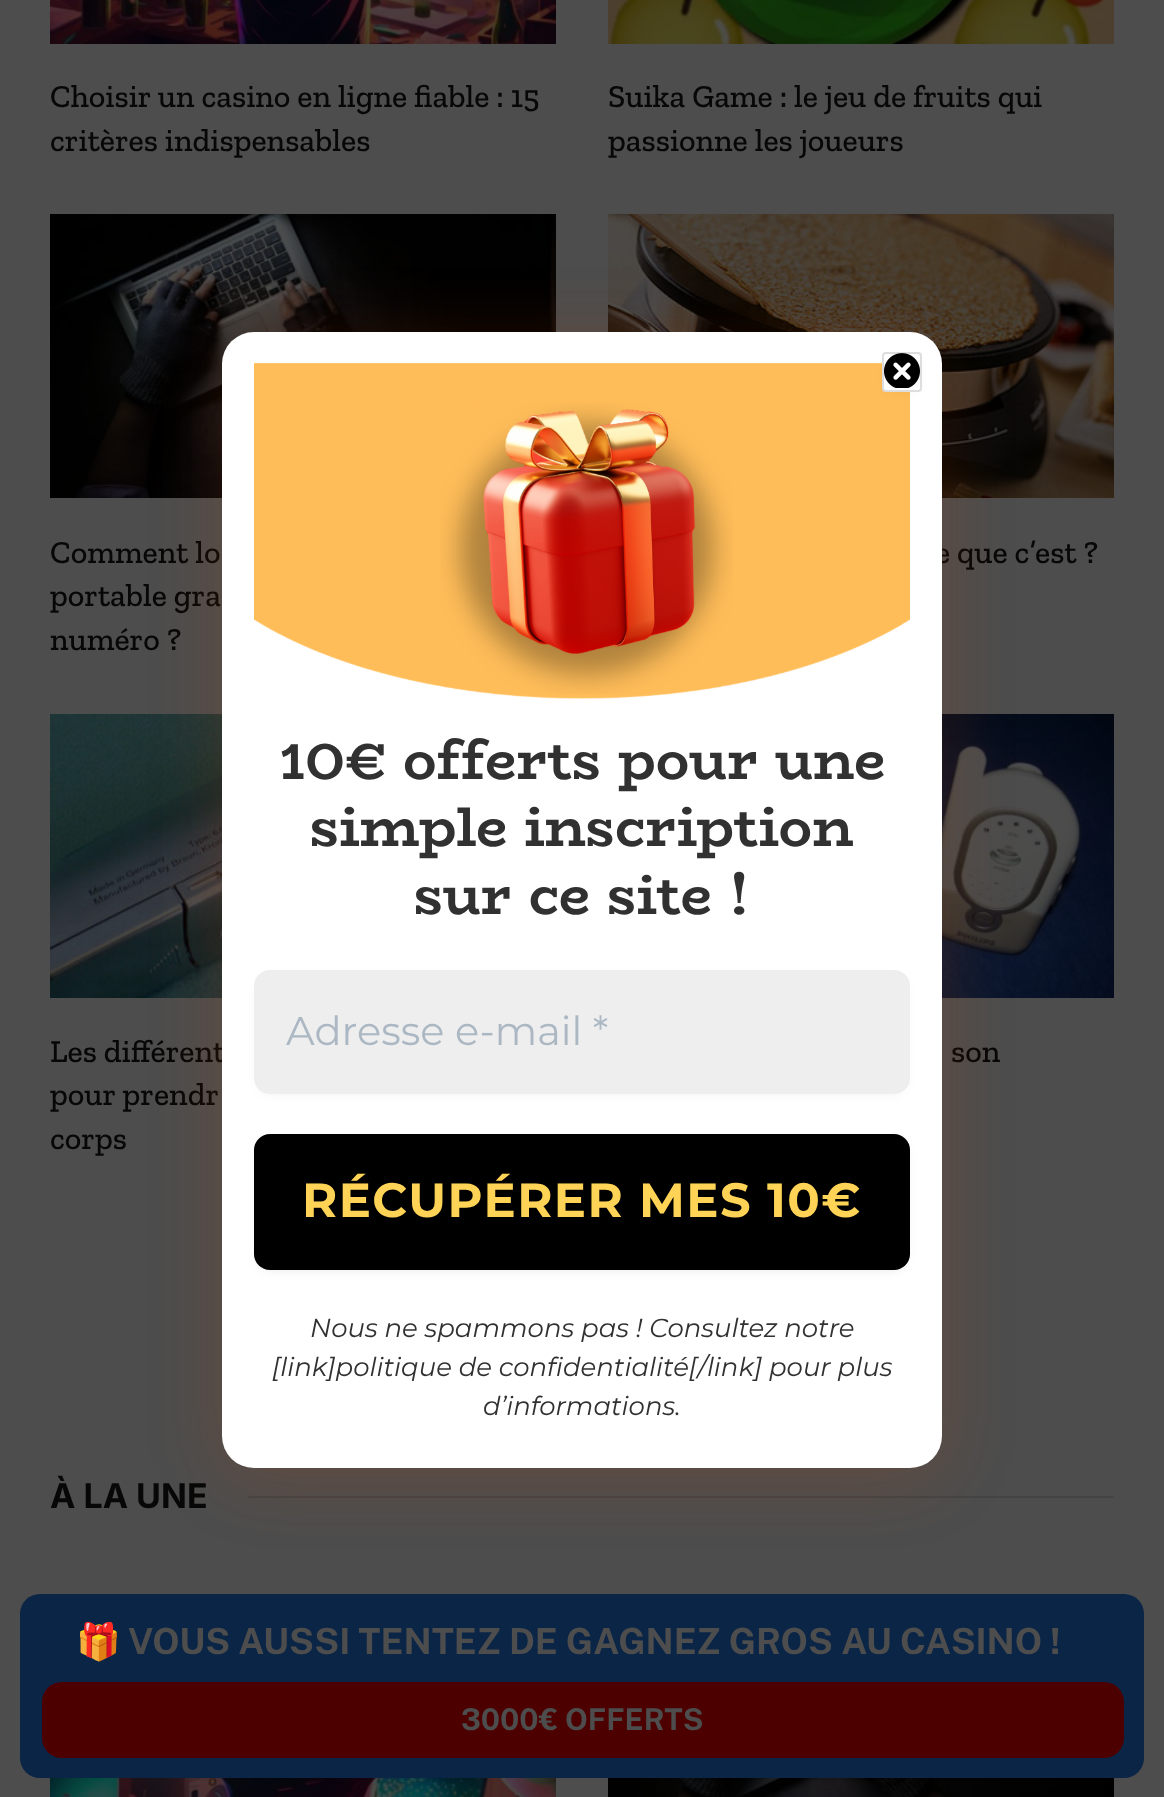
async function draw(canvas) {
	canvas.width = 1164;
	canvas.height = 1797;
	const c = canvas.getContext('2d');
	c.miterLimit = 4;
	c.fontKerning = 'normal';
	async function loadImage(src) {
		const img = new Image();
		img.src = src;
		await img.decode();
		return img;
	}

	c.fillStyle = '#4d4d4d';
	c.fillRect(0, 0, 1164, 1797);
	c.drawImage(await loadImage('img1.png'), 50, 0, 506, 44);
	c.font = '500 32px Zilla Slab';
	c.fillStyle = '#070707';
	c.fillText('Choisir un casino en ligne fiable : 15', 50, 107);
	c.fillText('critères indispensables', 50, 151);
	c.drawImage(await loadImage('img2.png'), 608, 0, 506, 44);
	c.fillText('Suika Game : le jeu de fruits qui', 608, 107);
	c.fillText('passionne les joueurs', 608, 151);
	c.drawImage(await loadImage('img3.png'), 50, 214, 506, 284);
	for (const [text, x, y] of [
		['Comment lo', 50, 563],
		['portable gra', 50, 606],
		['numéro ?', 50, 650],
	]) {
		c.fillText(text, x, y);
	}
	c.drawImage(await loadImage('img4.png'), 608, 214, 506, 284);
	c.fillText('e que c’est ?', 935, 563);
	c.drawImage(await loadImage('img5.png'), 50, 714, 172, 284);
	for (const [text, x, y] of [
		['Les différent', 50, 1062],
		['pour prendr', 50, 1105],
		['corps', 50, 1149],
	]) {
		c.fillText(text, x, y);
	}
	c.drawImage(await loadImage('img6.png'), 942, 714, 172, 284);
	c.fillText('son', 951, 1062);
	c.fillStyle = '#444';
	c.fillRect(248, 1496, 866, 2);
	c.fillStyle = '#c3410233';
	c.filter = 'blur(35px)';
	c.beginPath();
	c.roundRect(222, 340, 720, 1136, 32);
	c.fill();
	c.filter = 'none';
	c.fillStyle = '#fff';
	c.beginPath();
	c.roundRect(222, 332, 720, 1136, 32);
	c.fill();
	c.drawImage(await loadImage('img8.png'), 254, 363, 656, 336);
	c.fillStyle = '#0000001a';
	c.filter = 'blur(7px)';
	c.beginPath();
	c.rect(890, 364, 24, 24);
	c.fill();
	c.filter = 'none';
	c.fillStyle = '#fff';
	c.beginPath();
	c.roundRect(883, 353, 38, 38, 3);
	c.fill();
	c.strokeStyle = '#ddd';
	c.lineWidth = 2;
	c.stroke();
	c.drawImage(await loadImage('img7.png'), 884, 353, 36, 35);
	c.font = 'bold 56px BioRhyme';
	c.fillStyle = '#313131';
	for (const [text, x, y] of [
		['10€ offerts pour une', 279, 779],
		['simple inscription', 310, 846],
		['sur ce site !', 414, 914],
	]) {
		c.fillText(text, x, y);
	}
	c.fillStyle = '#0000001a';
	c.filter = 'blur(7px)';
	c.beginPath();
	c.roundRect(262, 982, 640, 108, 8);
	c.fill();
	c.filter = 'none';
	c.fillStyle = '#eee';
	c.beginPath();
	c.roundRect(254, 970, 656, 124, 16);
	c.fill();
	c.font = '40px Montserrat';
	c.fillStyle = '#abb8c3';
	c.fillText('Adresse e-mail *', 286, 1045);
	c.fillStyle = '#00000029';
	c.filter = 'blur(7px)';
	c.beginPath();
	c.roundRect(262, 1146, 640, 120, 8);
	c.fill();
	c.filter = 'none';
	c.fillStyle = '#000';
	c.beginPath();
	c.roundRect(254, 1134, 656, 136, 16);
	c.fill();
	c.letterSpacing = '1.4px';
	c.font = 'bold 48px Montserrat';
	c.fillStyle = '#ffd456';
	c.fillText('RÉCUPÉRER MES 10€', 302, 1217);
	c.letterSpacing = '0px';
	c.font = 'italic 26px Montserrat';
	c.fillStyle = '#313131';
	for (const [text, x, y] of [
		['Nous ne spammons pas ! Consultez notre', 310, 1337],
		['[link]politique de confidentialité[/link] pour plus', 272, 1376],
		['d’informations.', 483, 1415],
	]) {
		c.fillText(text, x, y);
	}
	c.font = 'bold 34px Inter';
	c.fillStyle = '#070707';
	c.fillText('À LA UNE', 50, 1508);
	c.drawImage(await loadImage('img9.png'), 50, 1778, 506, 19);
	c.drawImage(await loadImage('img10.png'), 608, 1778, 506, 19);
	c.fillStyle = '#0b2547';
	c.beginPath();
	c.roundRect(20, 1594, 1124, 184, 20);
	c.fill();
	c.font = 'bold 36px Noto Color Emoji';
	c.fillStyle = '#4d4d4d';
	c.fillText('🎁', 76, 1654);
	c.font = 'bold 36px Public Sans';
	c.fillText('VOUS AUSSI TENTEZ DE GAGNEZ GROS AU CASINO !', 128, 1654);
	c.fillStyle = '#4d0000';
	c.beginPath();
	c.roundRect(42, 1682, 1082, 76, 20);
	c.fill();
	c.font = 'bold 30px Public Sans';
	c.fillStyle = '#4d4d4d';
	c.fillText('3000€ OFFERTS', 461, 1730);
}

draw(document.querySelector('canvas'));
